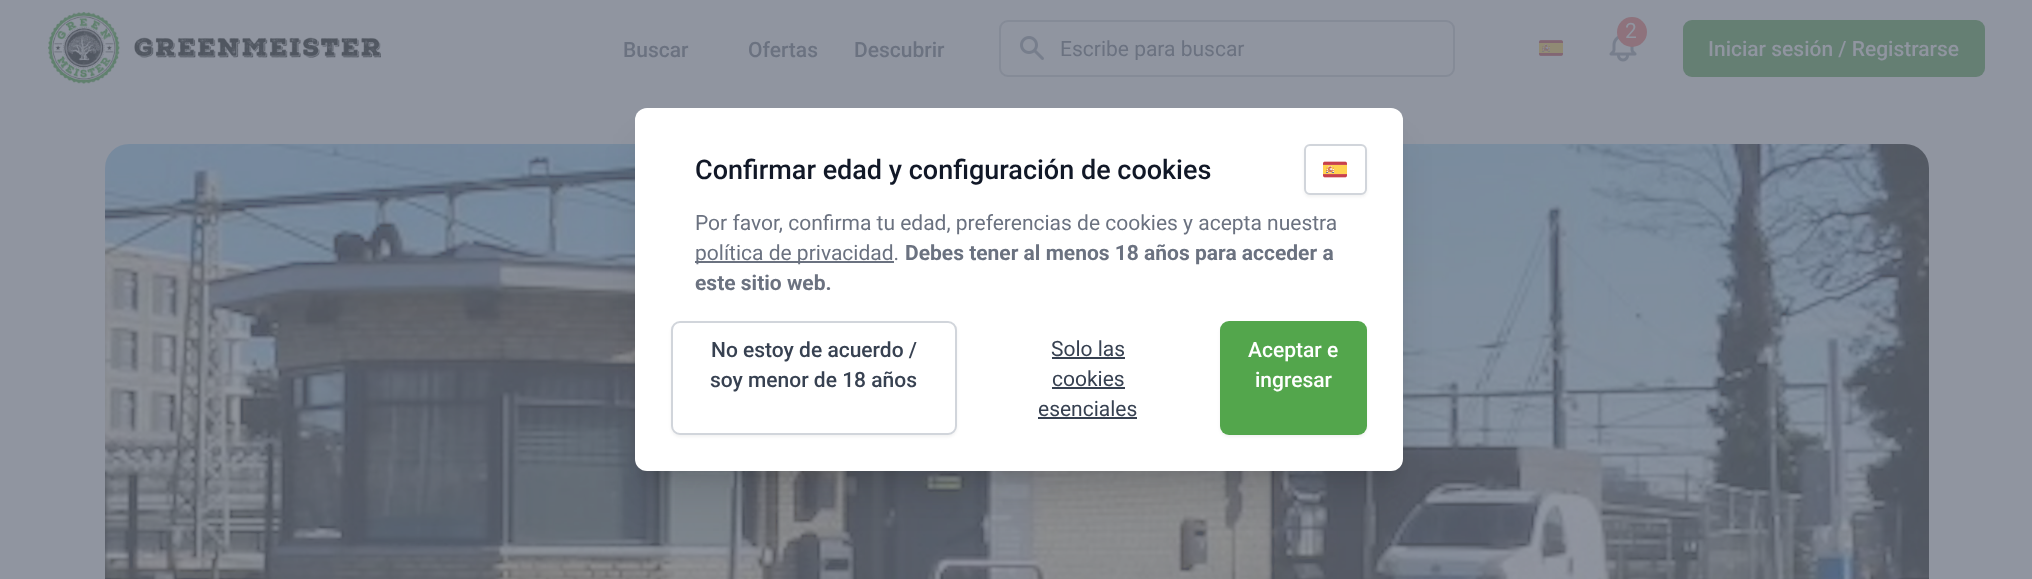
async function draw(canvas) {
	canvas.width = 2032;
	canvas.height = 579;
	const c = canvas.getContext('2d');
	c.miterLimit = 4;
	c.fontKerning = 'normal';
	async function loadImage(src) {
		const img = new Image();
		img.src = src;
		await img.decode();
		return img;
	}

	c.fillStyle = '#9095a0';
	c.fillRect(0, 0, 2032, 579);
	c.drawImage(await loadImage('img1.png'), 48, 12, 333, 72);
	c.font = '500 21px Roboto';
	c.fillStyle = '#6b7280';
	for (const [text, x, y] of [
		['Buscar', 623, 57],
		['Ofertas', 748, 57],
		['Descubrir', 854, 57],
	]) {
		c.fillText(text, x, y);
	}
	c.beginPath();
	c.roundRect(1000, 21, 454, 55, 8);
	c.strokeStyle = '#858b97';
	c.lineWidth = 2;
	c.stroke();
	c.drawImage(await loadImage('img2.png'), 1020, 36, 24, 24);
	c.save();
	c.beginPath();
	c.rect(1061, 36, 354, 24);
	c.clip();
	c.font = '21px Roboto';
	c.fillText('Escribe para buscar', 1060, 56);
	c.restore();
	c.drawImage(await loadImage('img3.png'), 1609, 35, 28, 27);
	c.fillStyle = '#8e727c';
	c.beginPath();
	c.arc(1632, 32, 15, 0, 2 * Math.PI);
	c.fill();
	c.font = '21px Roboto';
	c.fillStyle = '#9095a0';
	c.fillText('2', 1625, 38);
	c.drawImage(await loadImage('img4.png'), 1539, 40, 24, 16);
	c.fillStyle = '#657f73';
	c.beginPath();
	c.roundRect(1683, 20, 302, 57, 9);
	c.fill();
	c.font = '500 21px Roboto';
	c.fillStyle = '#9095a0';
	c.fillText('Iniciar sesión / Registrarse', 1708, 56);
	c.drawImage(await loadImage('img5.png'), 105, 144, 1824, 435);
	c.fillStyle = '#0000001a';
	c.filter = 'blur(7.5px)';
	c.beginPath();
	c.roundRect(644, 129, 750, 345, 3);
	c.fill();
	c.filter = 'none';
	c.filter = 'blur(19px)';
	c.beginPath();
	c.roundRect(642, 146, 753, 348, 5);
	c.fill();
	c.filter = 'none';
	c.fillStyle = '#fff';
	c.beginPath();
	c.roundRect(635, 108, 768, 363, 12);
	c.fill();
	c.font = '500 27px Roboto';
	c.fillStyle = '#111827';
	c.fillText('Confirmar edad y configuración de cookies', 695, 179);
	c.fillStyle = '#0000000d';
	c.filter = 'blur(1.5px)';
	c.beginPath();
	c.roundRect(1304, 146, 63, 51, 6);
	c.fill();
	c.filter = 'none';
	c.fillStyle = '#fff';
	c.beginPath();
	c.roundRect(1305, 145, 61, 49, 5);
	c.fill();
	c.strokeStyle = '#d1d5db';
	c.stroke();
	c.drawImage(await loadImage('img6.png'), 1323, 161, 24, 17);
	c.font = '21px Roboto';
	c.fillStyle = '#6b7280';
	c.fillText('Por favor, confirma tu edad, preferencias de cookies y acepta nuestra', 695, 230);
	c.fillRect(695, 261, 199, 2);
	c.fillText('política de privacidad.', 695, 260);
	c.font = 'bold 21px Roboto';
	c.fillText('Debes tener al menos 18 años para acceder a', 905, 260);
	c.fillText('este sitio web.', 695, 290);
	c.fillStyle = '#0000000d';
	c.filter = 'blur(1.5px)';
	c.beginPath();
	c.roundRect(671, 323, 286, 114, 9);
	c.fill();
	c.filter = 'none';
	c.fillStyle = '#fff';
	c.beginPath();
	c.roundRect(672, 322, 284, 112, 8);
	c.fill();
	c.stroke();
	c.font = '500 21px Roboto';
	c.fillStyle = '#374151';
	c.fillText('No estoy de acuerdo /', 711, 357);
	c.fillText('soy menor de 18 años', 710, 387);
	c.font = '21px Roboto';
	c.fillText('Solo las', 1051, 356);
	c.fillRect(1052, 357, 73, 2);
	c.fillText('cookies', 1052, 386);
	c.fillRect(1052, 387, 73, 2);
	c.fillText('esenciales', 1038, 416);
	c.fillRect(1038, 417, 99, 2);
	c.fillStyle = '#0000000d';
	c.filter = 'blur(1.5px)';
	c.beginPath();
	c.roundRect(1220, 323, 147, 114, 9);
	c.fill();
	c.filter = 'none';
	c.fillStyle = '#53a64c';
	c.beginPath();
	c.roundRect(1220, 321, 147, 114, 9);
	c.fill();
	c.font = '500 21px Roboto';
	c.fillStyle = '#fff';
	c.fillText('Aceptar e', 1248, 357);
	c.fillText('ingresar', 1255, 387);
}

draw(document.querySelector('canvas'));
